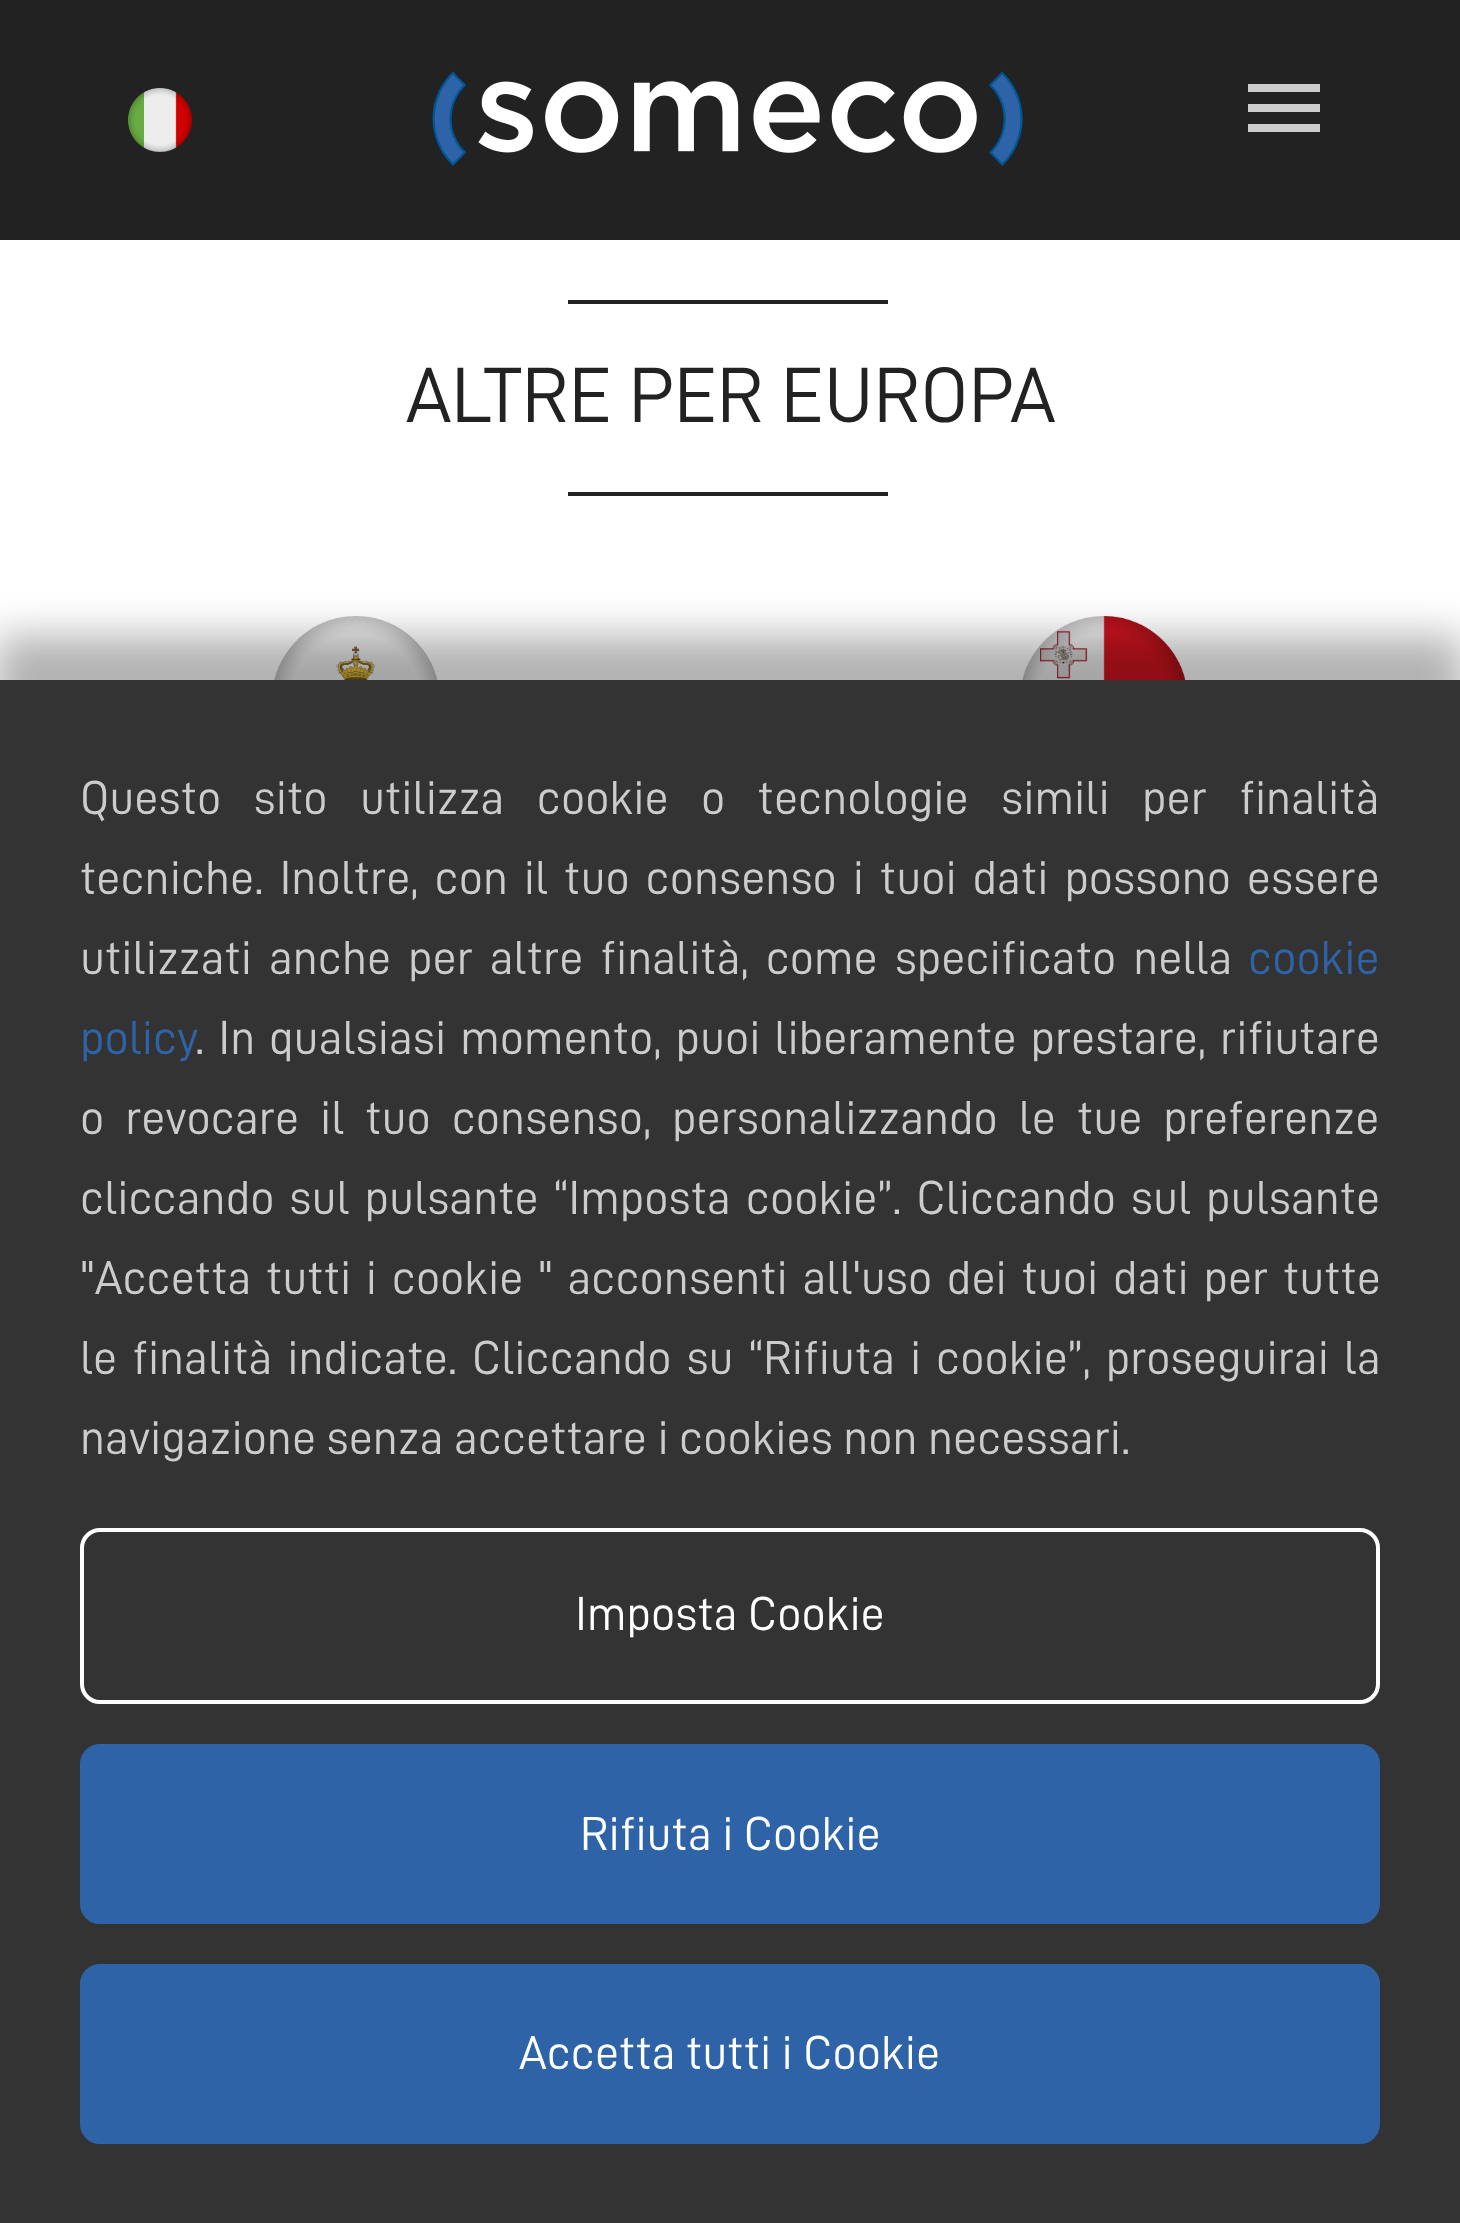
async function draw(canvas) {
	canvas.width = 1460;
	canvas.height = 2223;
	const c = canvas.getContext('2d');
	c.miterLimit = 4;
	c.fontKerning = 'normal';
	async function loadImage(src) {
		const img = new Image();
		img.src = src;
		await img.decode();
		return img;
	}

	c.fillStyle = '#fff';
	c.fillRect(0, 0, 1460, 2223);
	c.fillStyle = '#222';
	c.fillRect(0, 0, 1460, 240);
	c.drawImage(await loadImage('img1.png'), 128, 88, 64, 64);
	c.drawImage(await loadImage('img2.png'), 432, 71, 591, 95);
	c.fillStyle = '#ccc';
	c.beginPath();
	c.moveTo(1248, 84);
	c.lineTo(1320, 84);
	c.lineTo(1320, 92);
	c.lineTo(1248, 92);
	c.closePath();
	c.moveTo(1248, 112);
	c.lineTo(1248, 104);
	c.lineTo(1320, 104);
	c.lineTo(1320, 112);
	c.closePath();
	c.moveTo(1248, 132);
	c.lineTo(1248, 124);
	c.lineTo(1320, 124);
	c.lineTo(1320, 132);
	c.closePath();
	c.fill();
	c.fillStyle = '#222';
	c.fillRect(568, 300, 320, 4);
	c.font = '78.5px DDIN';
	c.fillText('ALTRE PER EUROPA', 406, 422);
	c.fillRect(568, 492, 320, 4);
	c.drawImage(await loadImage('img3.png'), 274, 616, 164, 64);
	c.drawImage(await loadImage('img4.png'), 1022, 616, 164, 64);
	c.fillStyle = '#0000004d';
	c.filter = 'blur(20px)';
	c.beginPath();
	c.rect(-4, 636, 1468, 1552);
	c.fill();
	c.filter = 'none';
	c.fillStyle = '#333';
	c.fillRect(0, 680, 1460, 1543);
	c.wordSpacing = '22px';
	c.font = '48px DDIN';
	c.fillStyle = '#ccc';
	c.fillText('Questo sito utilizza cookie o tecnologie simili per finalità', 80, 814);
	c.wordSpacing = '5.5px';
	c.fillText('tecniche. Inoltre, con il tuo consenso i tuoi dati possono essere', 80, 894);
	c.wordSpacing = '6.5px';
	c.fillText('utilizzati anche per altre finalità, come specificato nella', 80, 974);
	c.wordSpacing = '0px';
	c.fillStyle = '#2e64a7';
	c.fillText('cookie', 1248, 974);
	c.fillText('policy', 80, 1054);
	c.wordSpacing = '3.5px';
	c.fillStyle = '#ccc';
	c.fillText('. In qualsiasi momento, puoi liberamente prestare, rifiutare', 195, 1054);
	c.wordSpacing = '10.5px';
	c.fillText('o revocare il tuo consenso, personalizzando le tue preferenze', 80, 1134);
	c.wordSpacing = '4.5px';
	c.fillText('cliccando sul pulsante “Imposta cookie”. Cliccando sul pulsante', 80, 1214);
	c.wordSpacing = '4.25px';
	c.fillText('"Accetta tutti i cookie " acconsenti all\'uso dei tuoi dati per tutte', 80, 1294);
	c.wordSpacing = '4.5px';
	c.fillText('le finalità indicate. Cliccando su “Rifiuta i cookie”, proseguirai la', 80, 1374);
	c.wordSpacing = '0px';
	c.fillText('navigazione senza accettare i cookies non necessari.', 80, 1454);
	c.beginPath();
	c.roundRect(82, 1530, 1296, 172, 18);
	c.strokeStyle = '#fff';
	c.lineWidth = 4;
	c.stroke();
	c.fillStyle = '#fff';
	c.fillText('Imposta Cookie', 575, 1630);
	c.fillStyle = '#2e64a7';
	c.beginPath();
	c.roundRect(82, 1746, 1296, 176, 18);
	c.fill();
	c.strokeStyle = '#2e64a7';
	c.stroke();
	c.fillStyle = '#fff';
	c.fillText('Rifiuta i Cookie', 580, 1850);
	c.fillStyle = '#2e64a7';
	c.beginPath();
	c.roundRect(82, 1966, 1296, 176, 18);
	c.fill();
	c.stroke();
	c.fillStyle = '#fff';
	c.fillText('Accetta tutti i Cookie', 519, 2069);
}

draw(document.querySelector('canvas'));
